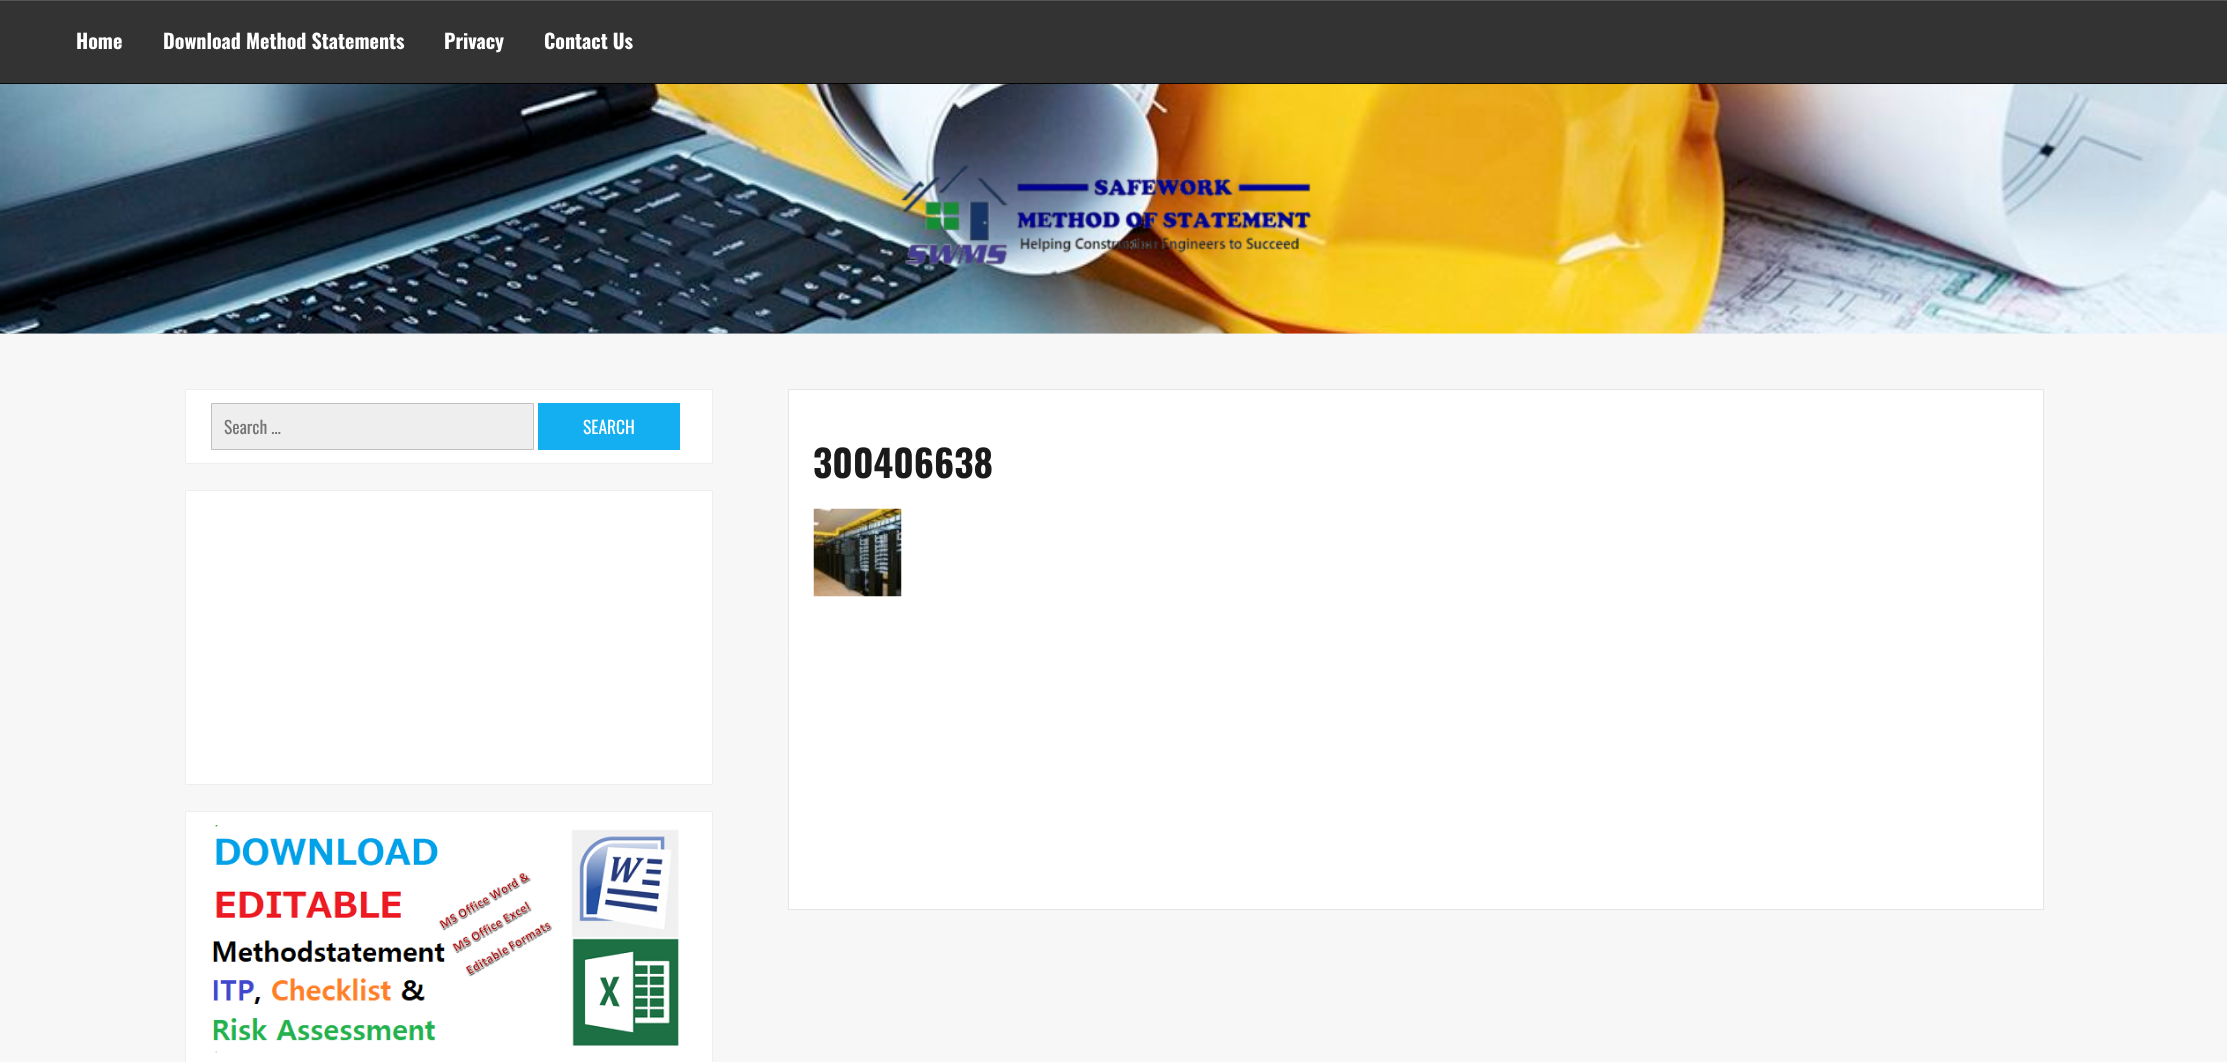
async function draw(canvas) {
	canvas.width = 2227;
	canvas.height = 1062;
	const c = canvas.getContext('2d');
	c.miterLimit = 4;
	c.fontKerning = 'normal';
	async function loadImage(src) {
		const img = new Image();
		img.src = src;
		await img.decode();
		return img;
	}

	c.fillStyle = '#f7f7f7';
	c.fillRect(0, 0, 2227, 1062);
	for (const [x, y, w, h, color] of [
		[0, 1, 2227, 82, '#333'],
		[0, 0, 2227, 1, '#555'],
		[0, 83, 2227, 1, '#000'],
	]) {
		c.fillStyle = color;
		c.fillRect(x, y, w, h);
	}
	c.font = 'bold 20px Oswald';
	c.fillStyle = '#fff';
	for (const [text, x, y] of [
		['Home', 76, 49],
		['Download Method Statements', 163, 49],
		['Privacy', 444, 49],
		['Contact Us', 544, 49],
	]) {
		c.fillText(text, x, y);
	}
	c.drawImage(await loadImage('img1.png'), 0, 83, 2227, 251);
	c.drawImage(await loadImage('img2.png'), 901, 165, 411, 100);
	c.beginPath();
	c.rect(185.5, 389.5, 527, 74);
	c.fill();
	c.strokeStyle = '#eee';
	c.stroke();
	c.fillStyle = '#eee';
	c.beginPath();
	c.rect(211.5, 403.5, 322, 46);
	c.fill();
	c.strokeStyle = '#c0c0c0';
	c.stroke();
	c.font = '17.5px Oswald';
	c.fillStyle = '#757575';
	c.fillText('Search …', 224, 434);
	c.fillStyle = '#13aff0';
	c.fillRect(538, 403, 142, 47);
	c.fillStyle = '#fff';
	c.fillText('SEARCH', 583, 434);
	c.beginPath();
	c.rect(185.5, 490.5, 527, 294);
	c.fill();
	c.strokeStyle = '#eee';
	c.stroke();
	c.beginPath();
	c.rect(185.5, 811.5, 527, 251);
	c.fill();
	c.stroke();
	c.drawImage(await loadImage('img3.png'), 213, 825, 466, 228);
	c.beginPath();
	c.rect(788.5, 389.5, 1255, 520);
	c.fill();
	c.strokeStyle = '#e5e5e5';
	c.stroke();
	c.font = 'bold 37.5px Oswald';
	c.fillStyle = '#1a1a1a';
	c.fillText('300406638', 813, 478);
	c.drawImage(await loadImage('img4.png'), 813, 508, 89, 89);
}

draw(document.querySelector('canvas'));
